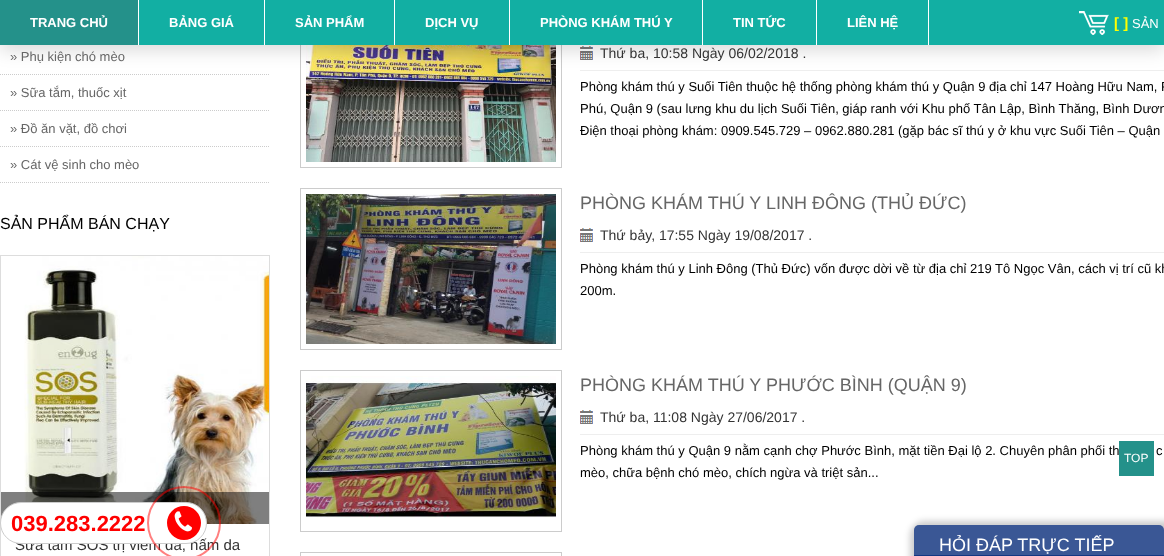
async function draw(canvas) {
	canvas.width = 1164;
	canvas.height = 556;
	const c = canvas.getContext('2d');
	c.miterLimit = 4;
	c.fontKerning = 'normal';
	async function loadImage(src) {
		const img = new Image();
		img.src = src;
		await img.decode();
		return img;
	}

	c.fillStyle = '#fff';
	c.fillRect(0, 0, 1164, 556);
	c.beginPath();
	c.moveTo(0, 74.5);
	c.lineTo(270, 74.5);
	c.strokeStyle = '#ccc';
	c.setLineDash([1, 1]);
	c.stroke();
	c.setLineDash([]);
	c.strokeRect(300.5, 6.5, 261, 161);
	c.drawImage(await loadImage('img3.png'), 306, 45, 250, 117);
	c.drawImage(await loadImage('img4.png'), 580, 46, 13, 14);
	c.fillStyle = '#eee';
	c.fillRect(580, 70, 584, 1);
	c.fillStyle = '#00000026';
	c.filter = 'blur(9px)';
	c.beginPath();
	c.rect(0, 5, 1164, 45);
	c.fill();
	c.filter = 'none';
	for (const [x, y, w, h, color] of [
		[139, 0, 1025, 45, '#12afa3'],
		[138, 0, 1, 45, '#fff'],
		[0, 0, 138, 45, '#24918a'],
	]) {
		c.fillStyle = color;
		c.fillRect(x, y, w, h);
	}
	c.font = 'bold 13px Liberation Sans';
	c.fillStyle = '#fff';
	c.fillText('TRANG CHỦ', 30, 27);
	c.fillRect(264, 0, 1, 45);
	c.fillText('BẢNG GIÁ', 169, 27);
	c.fillRect(394, 0, 1, 45);
	c.fillText('SẢN PHẨM', 295, 27);
	c.fillRect(509, 0, 1, 45);
	c.fillText('DỊCH VỤ', 425, 27);
	c.fillRect(702, 0, 1, 45);
	c.fillText('PHÒNG KHÁM THÚ Y', 540, 27);
	c.fillRect(816, 0, 1, 45);
	c.fillText('TIN TỨC', 733, 27);
	c.fillRect(928, 0, 1, 45);
	c.fillText('LIÊN HỆ', 847, 27);
	c.drawImage(await loadImage('img1.png'), 1079, 11, 30, 24);
	c.font = 'bold 15px Liberation Sans';
	c.fillStyle = '#ff0';
	c.fillText('[ ]', 1114, 28);
	c.font = '13px Liberation Sans';
	c.fillStyle = '#fff';
	c.fillText('SẢN', 1132, 28);
	c.fillStyle = '#666';
	c.fillText('» Phụ kiện chó mèo', 10, 61);
	c.beginPath();
	c.moveTo(0, 110.5);
	c.lineTo(270, 110.5);
	c.setLineDash([1, 1]);
	c.stroke();
	c.fillText('» Sữa tắm, thuốc xịt', 10, 97);
	c.beginPath();
	c.moveTo(0, 146.5);
	c.lineTo(270, 146.5);
	c.stroke();
	c.fillText('» Đồ ăn vặt, đồ chơi', 10, 133);
	c.beginPath();
	c.moveTo(0, 182.5);
	c.lineTo(270, 182.5);
	c.stroke();
	c.fillText('» Cát vệ sinh cho mèo', 10, 169);
	c.font = '16px Liberation Sans';
	c.fillStyle = '#000';
	c.fillText('SẢN PHẨM BÁN CHẠY', 0, 229);
	c.strokeStyle = '#ddd';
	c.setLineDash([]);
	c.strokeRect(0.5, 255.5, 269, 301);
	c.drawImage(await loadImage('img2.png'), 24, 256, 245, 268);
	c.fillStyle = '#00000080';
	c.fillRect(1, 492, 268, 32);
	c.font = '15px Liberation Sans';
	c.fillStyle = '#333';
	c.fillText('Sữa tắm SOS trị viêm da, nấm da', 15, 550);
	c.font = '14px Liberation Sans';
	c.fillText('Thứ ba, 10:58 Ngày 06/02/2018 .', 600, 58);
	c.font = '13px Liberation Sans';
	c.fillStyle = '#000';
	for (const [text, x, y] of [
		['Phòng khám thú y Suối Tiên thuộc hệ thống phòng khám thú y Quận 9 địa chỉ 147 Hoàng Hữu Nam, P', 580, 91],
		['Phú, Quận 9 (sau lưng khu du lịch Suối Tiên, giáp ranh với Khu phố Tân Lập, Bình Thăng, Bình Dươn', 580, 113],
		['Điện thoại phòng khám: 0909.545.729 – 0962.880.281 (gặp bác sĩ thú y ở khu vực Suối Tiên – Quận', 580, 135],
	]) {
		c.fillText(text, x, y);
	}
	c.strokeStyle = '#ccc';
	c.strokeRect(300.5, 188.5, 261, 161);
	c.drawImage(await loadImage('img5.png'), 306, 194, 250, 150);
	c.font = '18px Liberation Sans';
	c.fillStyle = '#666';
	c.fillText('PHÒNG KHÁM THÚ Y LINH ĐÔNG (THỦ ĐỨC)', 580, 209);
	c.drawImage(await loadImage('img4.png'), 580, 228, 13, 14);
	c.fillStyle = '#eee';
	c.fillRect(580, 252, 584, 1);
	c.font = '14px Liberation Sans';
	c.fillStyle = '#333';
	c.fillText('Thứ bảy, 17:55 Ngày 19/08/2017 .', 600, 240);
	c.font = '13px Liberation Sans';
	c.fillStyle = '#000';
	c.fillText('Phòng khám thú y Linh Đông (Thủ Đức) vốn được dời về từ địa chỉ 219 Tô Ngọc Vân, cách vị trí cũ kh', 580, 273);
	c.fillText('200m.', 580, 295);
	c.strokeRect(300.5, 370.5, 261, 161);
	c.drawImage(await loadImage('img6.png'), 306, 376, 250, 142);
	c.font = '18px Liberation Sans';
	c.fillStyle = '#666';
	c.fillText('PHÒNG KHÁM THÚ Y PHƯỚC BÌNH (QUẬN 9)', 580, 391);
	c.drawImage(await loadImage('img4.png'), 580, 410, 13, 14);
	c.fillStyle = '#eee';
	c.fillRect(580, 434, 584, 1);
	c.font = '14px Liberation Sans';
	c.fillStyle = '#333';
	c.fillText('Thứ ba, 11:08 Ngày 27/06/2017 .', 600, 422);
	c.font = '13px Liberation Sans';
	c.fillStyle = '#000';
	for (const [text, x, y] of [
		['Phòng khám thú y Quận 9 nằm cạnh chợ Phước Bình, mặt tiền Đại lộ 2. Chuyên phân phối th', 580, 455],
		['c', 1156, 455],
		['mèo, chữa bệnh chó mèo, chích ngừa và triệt sản...', 580, 477],
	]) {
		c.fillText(text, x, y);
	}
	c.strokeRect(300.5, 552.5, 261, 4);
	c.fillStyle = '#24918a';
	c.fillRect(1119, 441, 35, 35);
	c.font = '12px Liberation Sans';
	c.fillStyle = '#fff';
	c.fillText('TOP', 1124, 462);
	c.beginPath();
	c.roundRect(0.5, 502.5, 206, 41, 20.5);
	c.fill();
	c.stroke();
	c.font = 'bold 22px Liberation Sans';
	c.fillStyle = '#f00';
	c.fillText('039.283.2222', 11, 531);
	c.beginPath();
	c.arc(184, 523, 36, 0, 2 * Math.PI);
	c.strokeStyle = '#ff000080';
	c.lineWidth = 2;
	c.stroke();
	c.beginPath();
	c.arc(184, 523, 17, 0, 2 * Math.PI);
	c.fill();
	c.drawImage(await loadImage('img7.png'), 174, 511, 18, 21);
	c.fillStyle = '#00000033';
	c.filter = 'blur(3px)';
	c.beginPath();
	c.roundRect(910, 521, 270, 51, 15);
	c.fill();
	c.filter = 'none';
	c.fillStyle = '#3a5795';
	c.beginPath();
	c.roundRect(914, 525, 250, 31, [5, 5, 0, 0]);
	c.fill();
	c.fillStyle = '#133783';
	c.fillRect(914, 555, 250, 1);
	c.font = '18px Liberation Sans';
	c.fillStyle = '#fff';
	c.fillText('HỎI ĐÁP TRỰC TIẾP', 939, 551);
}

draw(document.querySelector('canvas'));
